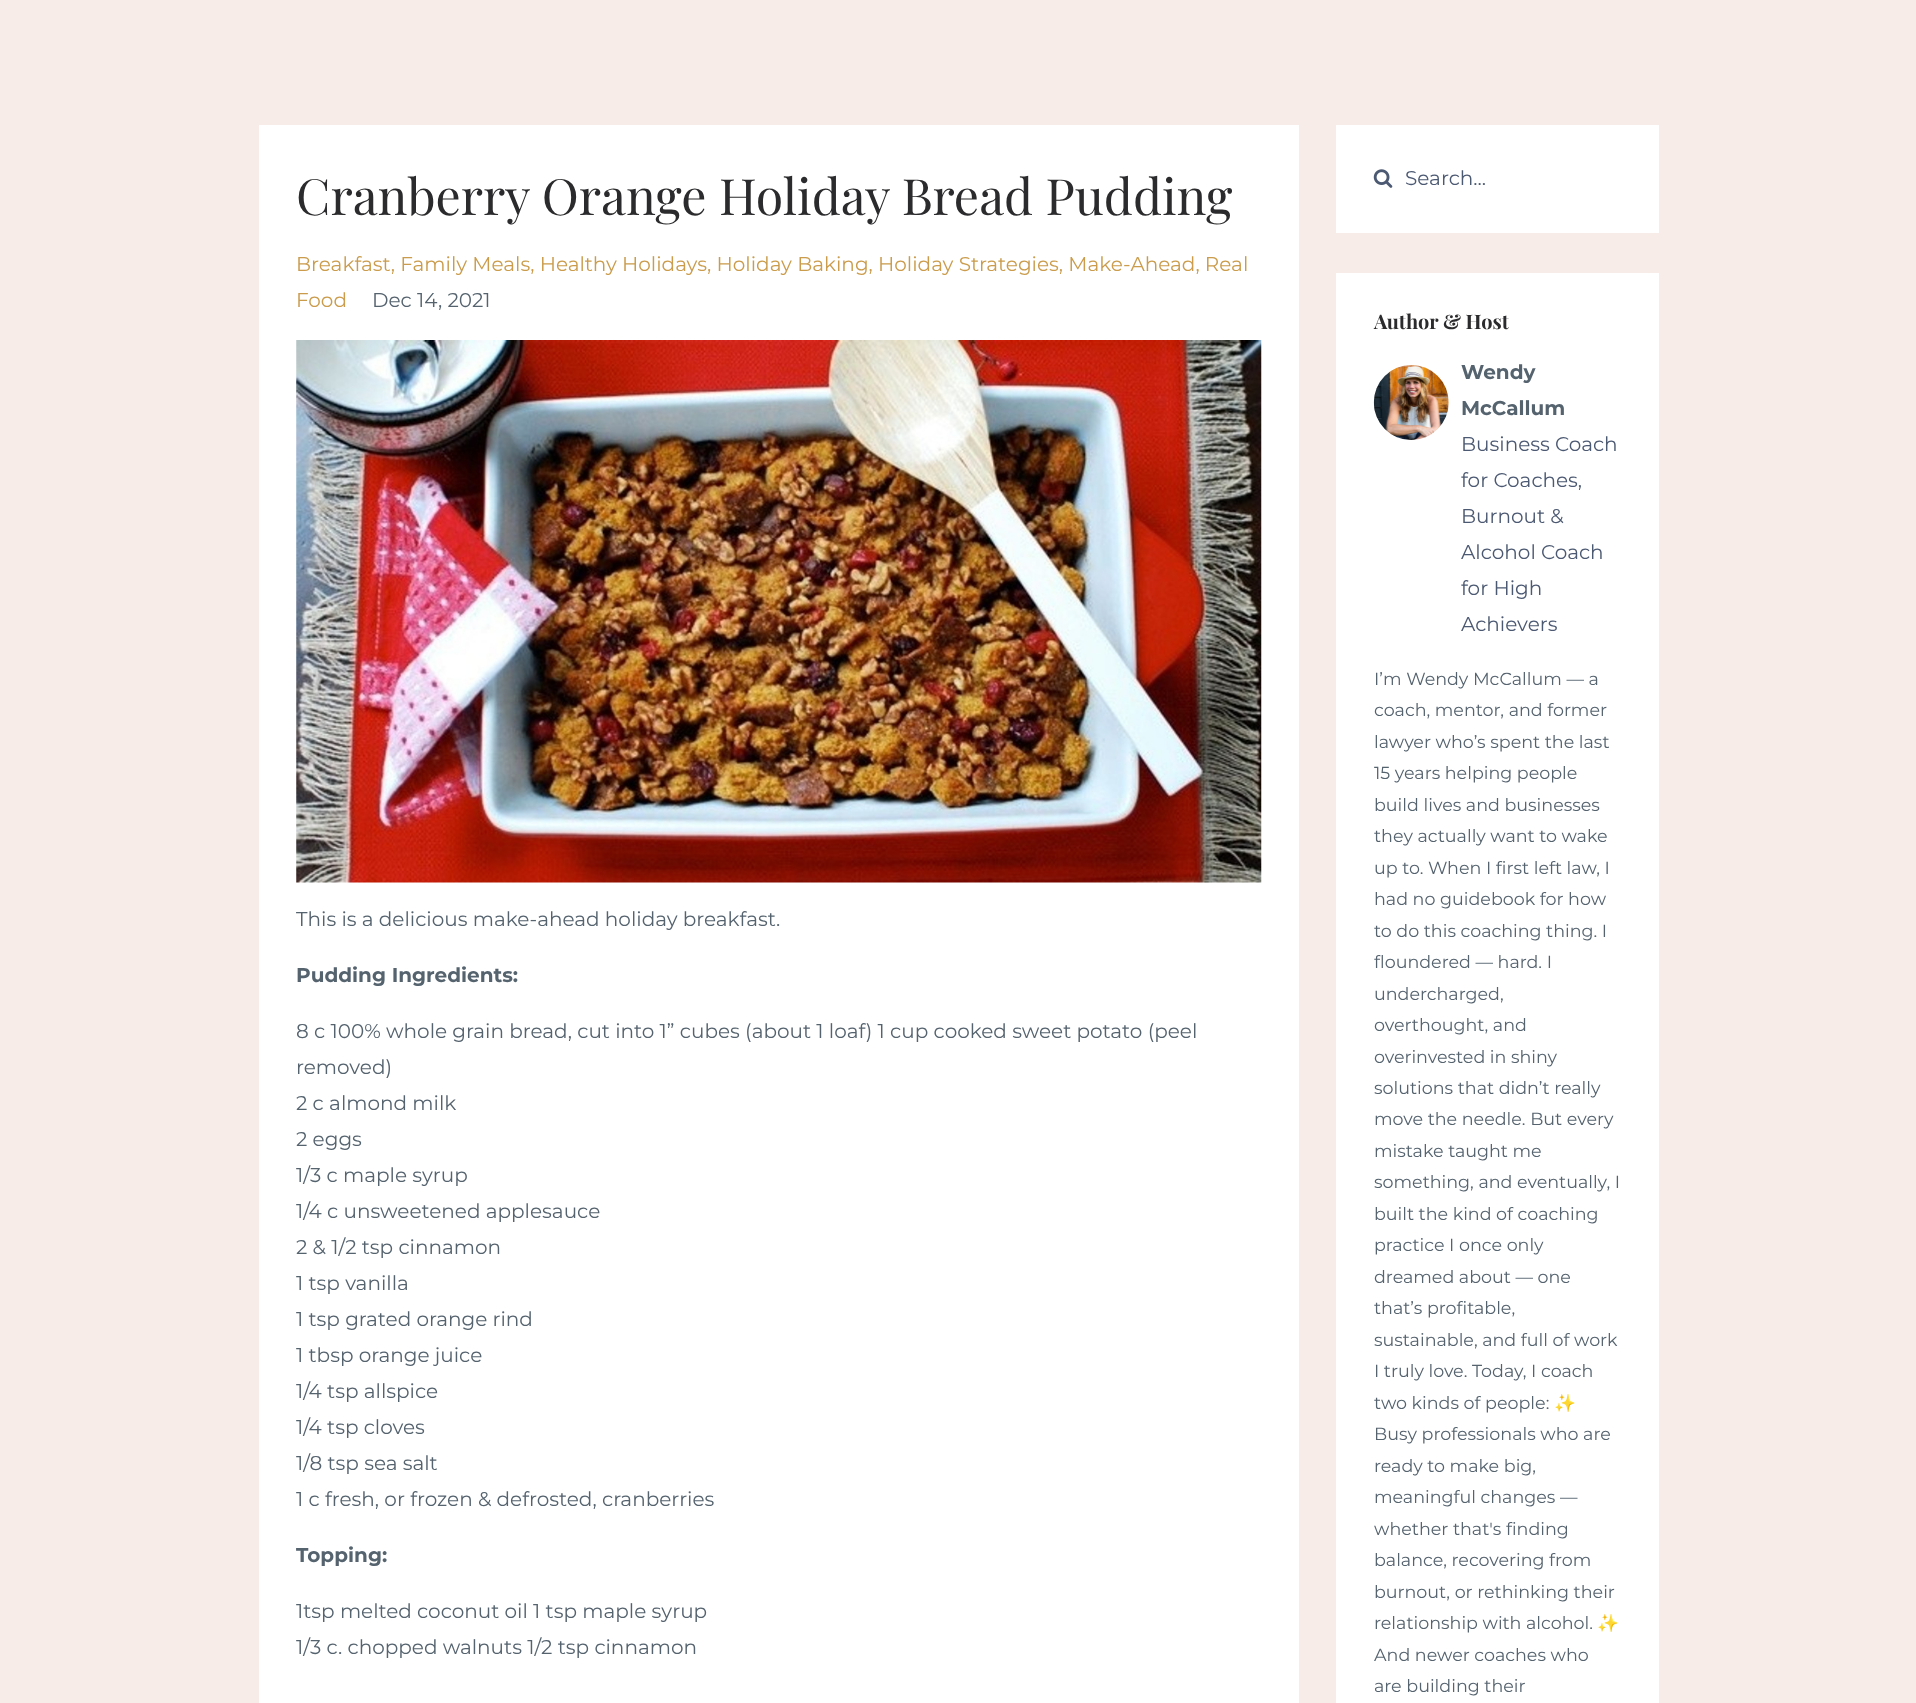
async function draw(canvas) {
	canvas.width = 1916;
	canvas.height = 1703;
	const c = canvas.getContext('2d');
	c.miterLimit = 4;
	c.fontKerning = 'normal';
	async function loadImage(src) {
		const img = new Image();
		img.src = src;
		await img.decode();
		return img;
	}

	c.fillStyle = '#f7ece8';
	c.fillRect(0, 0, 1916, 1703);
	c.fillStyle = '#fff';
	c.fillRect(259, 125, 1040, 1578);
	c.font = '50px Playfair Display';
	c.fillStyle = '#2b2b2d';
	c.fillText('Cranberry Orange Holiday Bread Pudding', 296, 215);
	c.font = '20px Montserrat';
	c.fillStyle = '#ca9c4c';
	c.fillText('Breakfast, Family Meals, Healthy Holidays, Holiday Baking, Holiday Strategies, Make-Ahead, Real', 296, 271);
	c.fillText('Food', 296, 307);
	c.fillStyle = '#55636f';
	c.fillText('Dec 14, 2021', 372, 307);
	c.drawImage(await loadImage('img1.png'), 296, 340, 966, 543);
	c.fillText('This is a delicious make-ahead holiday breakfast.', 296, 926);
	c.font = 'bold 20px Montserrat';
	c.fillText('Pudding Ingredients:', 296, 982);
	c.font = '20px Montserrat';
	for (const [text, x, y] of [
		['8 c 100% whole grain bread, cut into 1” cubes (about 1 loaf) 1 cup cooked sweet potato (peel', 296, 1038],
		['removed)', 296, 1074],
		['2 c almond milk', 296, 1110],
		['2 eggs', 296, 1146],
		['1/3 c maple syrup', 296, 1182],
		['1/4 c unsweetened applesauce', 296, 1218],
		['2 & 1/2 tsp cinnamon', 296, 1254],
		['1 tsp vanilla', 296, 1290],
		['1 tsp grated orange rind', 296, 1326],
		['1 tbsp orange juice', 296, 1362],
		['1/4 tsp allspice', 296, 1398],
		['1/4 tsp cloves', 296, 1434],
		['1/8 tsp sea salt', 296, 1470],
		['1 c fresh, or frozen & defrosted, cranberries', 296, 1506],
	]) {
		c.fillText(text, x, y);
	}
	c.font = 'bold 20px Montserrat';
	c.fillText('Topping:', 296, 1562);
	c.font = '20px Montserrat';
	c.fillText('1tsp melted coconut oil 1 tsp maple syrup', 296, 1618);
	c.fillText('1/3 c. chopped walnuts 1/2 tsp cinnamon', 296, 1654);
	c.fillStyle = '#fff';
	c.fillRect(1336, 125, 323, 108);
	c.drawImage(await loadImage('img2.png'), 1373, 169, 20, 19);
	c.fillStyle = '#4c5972';
	c.fillText('Search...', 1405, 185);
	c.fillStyle = '#fff';
	c.fillRect(1336, 273, 323, 1430);
	c.font = 'bold 20px Playfair Display';
	c.fillStyle = '#2b2b2d';
	c.fillText('Author & Host', 1374, 329);
	c.drawImage(await loadImage('img3.png'), 1373, 365, 76, 75);
	c.font = 'bold 20px Montserrat';
	c.fillStyle = '#55636f';
	c.fillText('Wendy', 1461, 379);
	c.fillText('McCallum', 1461, 415);
	c.font = '20px Montserrat';
	c.fillStyle = '#4c5972';
	for (const [text, x, y] of [
		['Business Coach', 1461, 451],
		['for Coaches,', 1461, 487],
		['Burnout &', 1461, 523],
		['Alcohol Coach', 1461, 559],
		['for High', 1461, 595],
		['Achievers', 1461, 631],
	]) {
		c.fillText(text, x, y);
	}
	c.font = '17.5px Montserrat';
	c.fillStyle = '#55636f';
	for (const [text, x, y] of [
		['I’m Wendy McCallum — a', 1374, 685],
		['coach, mentor, and former', 1374, 716],
		['lawyer who’s spent the last', 1374, 748],
		['15 years helping people', 1374, 779],
		['build lives and businesses', 1374, 811],
		['they actually want to wake', 1374, 842],
		['up to. When I first left law, I', 1374, 874],
		['had no guidebook for how', 1374, 905],
		['to do this coaching thing. I', 1374, 937],
		['floundered — hard. I', 1374, 968],
		['undercharged,', 1374, 1000],
		['overthought, and', 1374, 1031],
		['overinvested in shiny', 1374, 1063],
		['solutions that didn’t really', 1374, 1094],
		['move the needle. But every', 1374, 1125],
		['mistake taught me', 1374, 1157],
		['something, and eventually, I', 1374, 1188],
		['built the kind of coaching', 1374, 1220],
		['practice I once only', 1374, 1251],
		['dreamed about — one', 1374, 1283],
		['that’s profitable,', 1374, 1314],
		['sustainable, and full of work', 1374, 1346],
		['I truly love. Today, I coach', 1374, 1377],
		['two kinds of people:', 1374, 1409],
	]) {
		c.fillText(text, x, y);
	}
	c.font = '17.5px Noto Color Emoji';
	c.fillText('✨', 1554, 1409);
	c.font = '17.5px Montserrat';
	for (const [text, x, y] of [
		['Busy professionals who are', 1374, 1440],
		['ready to make big,', 1374, 1472],
		['meaningful changes —', 1374, 1503],
		['whether that\'s finding', 1374, 1535],
		['balance, recovering from', 1374, 1566],
		['burnout, or rethinking their', 1374, 1598],
		['relationship with alcohol.', 1374, 1629],
	]) {
		c.fillText(text, x, y);
	}
	c.font = '17.5px Noto Color Emoji';
	c.fillText('✨', 1597, 1629);
	c.font = '17.5px Montserrat';
	c.fillText('And newer coaches who', 1374, 1661);
	c.fillText('are building their', 1374, 1692);
}

draw(document.querySelector('canvas'));
